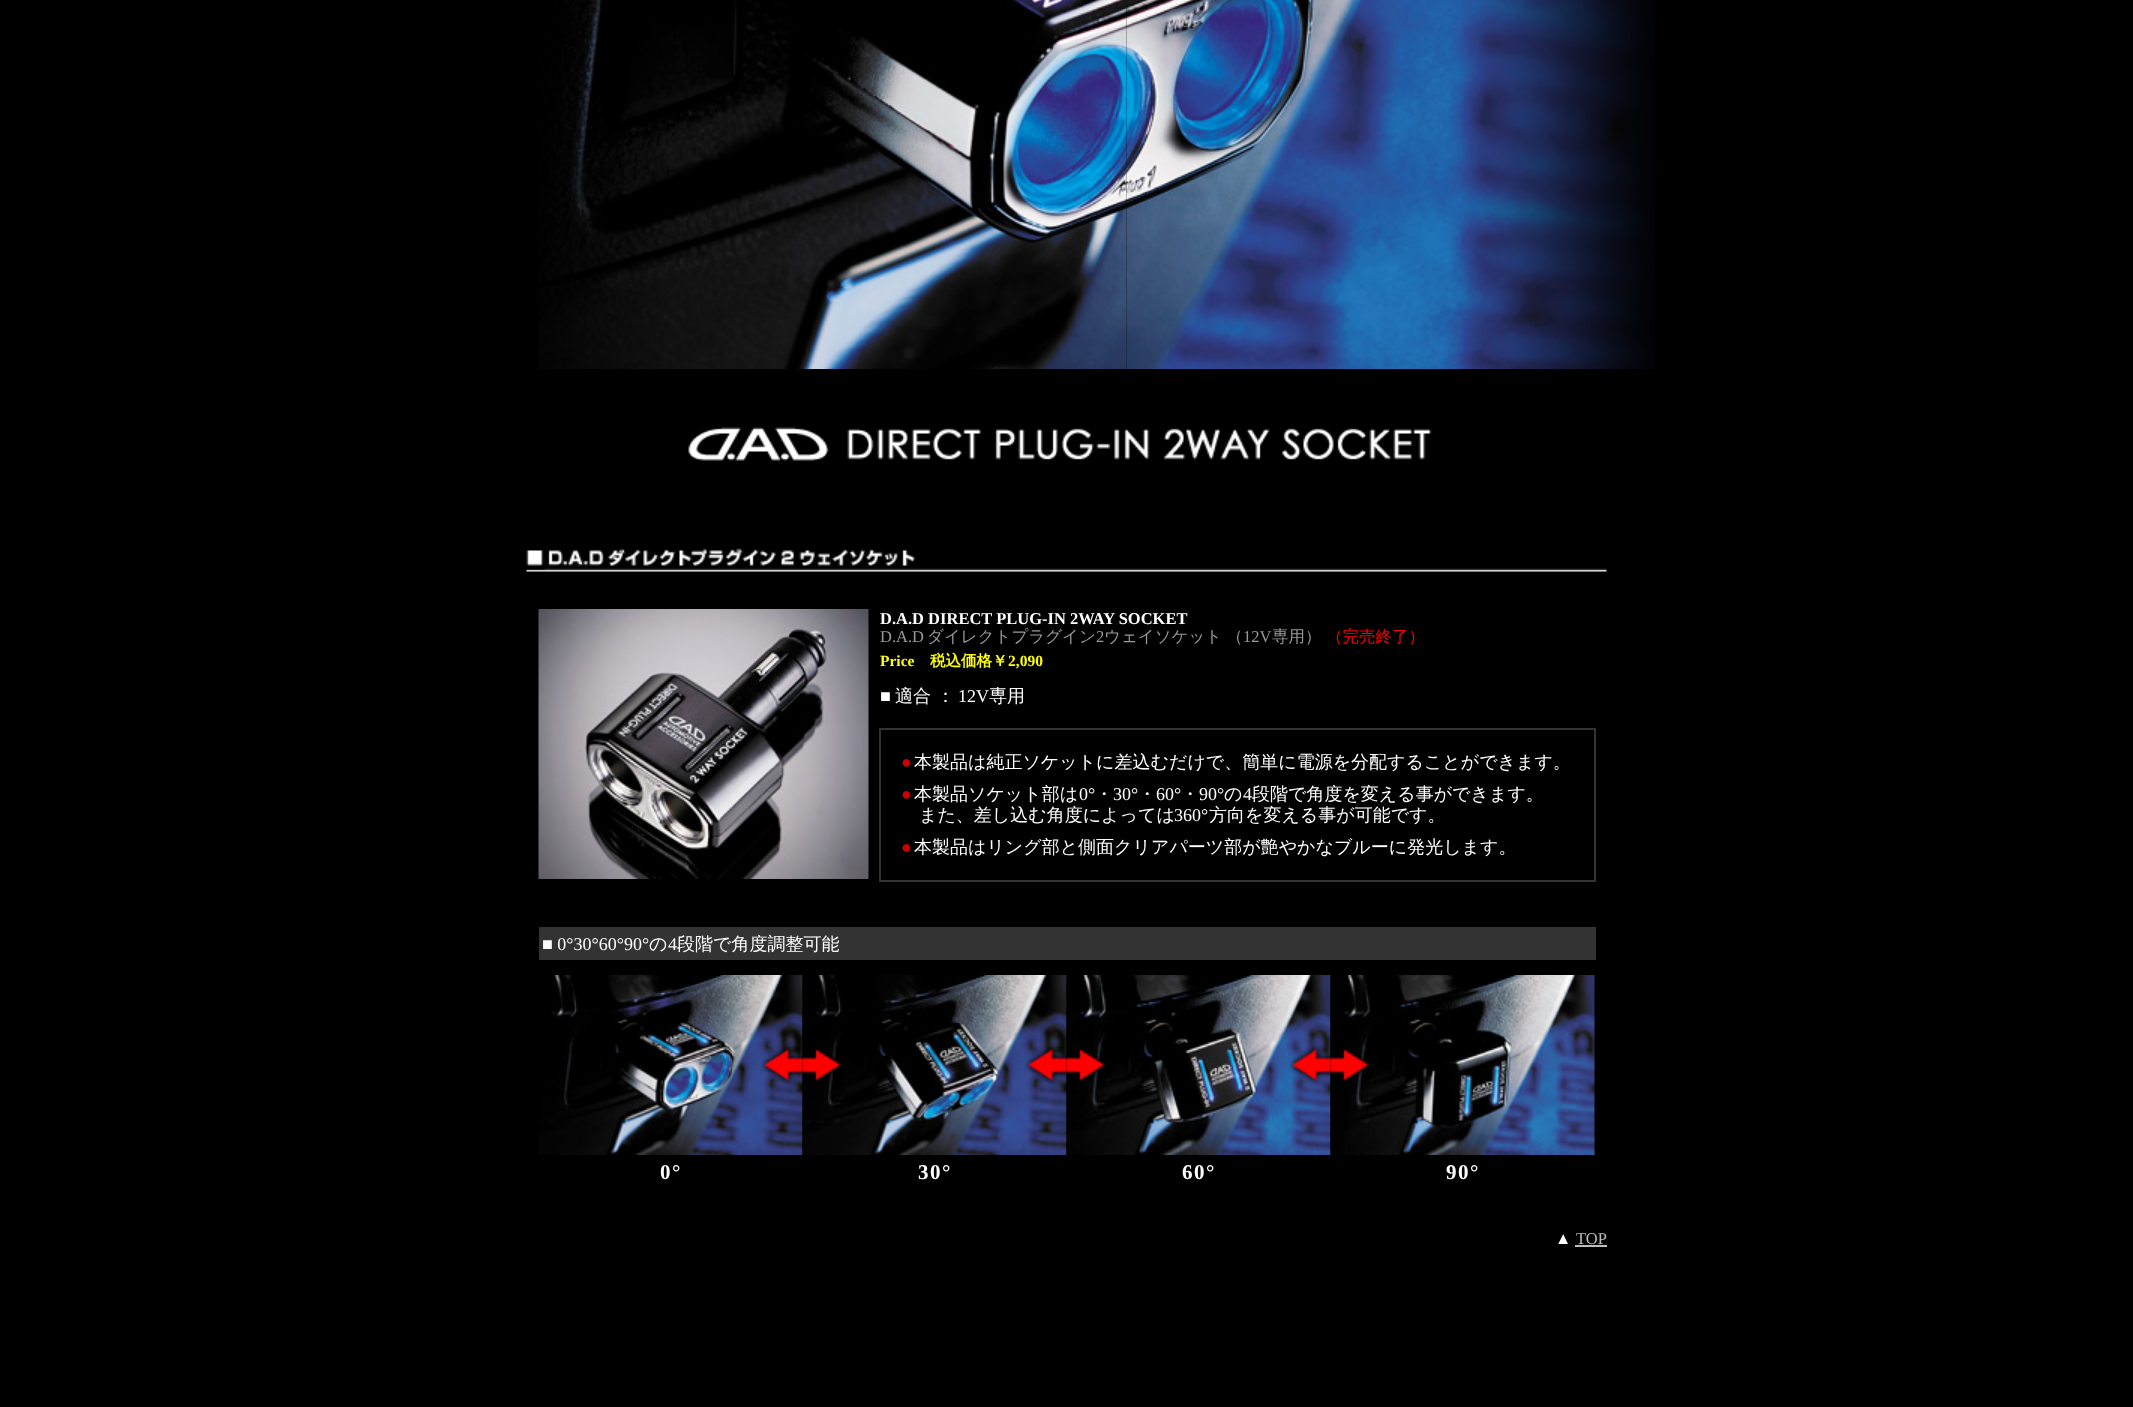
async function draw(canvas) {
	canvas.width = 2133;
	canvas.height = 1407;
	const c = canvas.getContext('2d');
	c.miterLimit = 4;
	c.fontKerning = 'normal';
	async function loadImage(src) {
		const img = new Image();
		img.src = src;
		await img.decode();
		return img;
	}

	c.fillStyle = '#000';
	c.fillRect(0, 0, 2133, 1407);
	c.drawImage(await loadImage('img1.png'), 538, 0, 589, 369);
	c.drawImage(await loadImage('img2.png'), 1126, 0, 529, 369);
	c.drawImage(await loadImage('img3.png'), 688, 427, 744, 34);
	c.drawImage(await loadImage('img4.png'), 526, 548, 1081, 24);
	c.drawImage(await loadImage('img5.png'), 538, 609, 331, 270);
	c.font = 'bold 16.5px Liberation Serif';
	c.fillStyle = '#fff';
	c.fillText('D.A.D DIRECT PLUG-IN 2WAY SOCKET', 880, 624);
	c.font = '16.5px Liberation Serif';
	c.fillStyle = '#999';
	c.fillText('D.A.D', 880, 642);
	c.font = '500 16.5px WenQuanYi Zen Hei';
	c.fillText('ダイレクトプラグイン', 927, 642);
	c.font = '16.5px Liberation Serif';
	c.fillText('2', 1096, 642);
	c.wordSpacing = '-1px';
	c.font = '500 16.5px WenQuanYi Zen Hei';
	c.fillText('ウェイソケット （', 1104, 642);
	c.wordSpacing = '0px';
	c.font = '16.5px Liberation Serif';
	c.fillText('12V', 1243, 642);
	c.font = '500 16.5px WenQuanYi Zen Hei';
	c.fillText('専用）', 1272, 642);
	c.fillStyle = '#f00';
	c.fillText('（完売終了）', 1326, 642);
	c.font = 'bold 15.5px Liberation Serif';
	c.fillStyle = '#ff0';
	c.fillText('Price', 880, 666);
	c.font = 'bold 15.5px WenQuanYi Zen Hei';
	c.fillText('税込価格￥', 930, 666);
	c.font = 'bold 15.5px Liberation Serif';
	c.fillText('2,090', 1008, 666);
	c.font = '18px Liberation Serif';
	c.fillStyle = '#fff';
	c.fillText('■', 880, 702);
	c.font = '500 18px WenQuanYi Zen Hei';
	c.fillText('適合 ：', 895, 702);
	c.font = '18px Liberation Serif';
	c.fillText('12V', 958, 702);
	c.font = '500 18px WenQuanYi Zen Hei';
	c.fillText('専用', 989, 702);
	c.strokeStyle = '#333';
	c.lineWidth = 2;
	c.strokeRect(880, 729, 715, 152);
	c.font = '18px Liberation Serif';
	c.fillStyle = '#c00';
	c.fillText('●', 901, 768);
	c.font = '500 18px WenQuanYi Zen Hei';
	c.fillStyle = '#fff';
	c.fillText('本製品は純正ソケットに差込むだけで、簡単に電源を分配することができます。', 914, 768);
	c.font = '18px Liberation Serif';
	c.fillStyle = '#c00';
	c.fillText('●', 901, 800);
	c.font = '500 18px WenQuanYi Zen Hei';
	c.fillStyle = '#fff';
	c.fillText('本製品ソケット部は', 914, 800);
	c.font = '18px Liberation Serif';
	c.fillText('0°', 1079, 800);
	c.font = '500 18px WenQuanYi Zen Hei';
	c.fillText('・', 1095, 800);
	c.font = '18px Liberation Serif';
	c.fillText('30°', 1113, 800);
	c.font = '500 18px WenQuanYi Zen Hei';
	c.fillText('・', 1138, 800);
	c.font = '18px Liberation Serif';
	c.fillText('60°', 1156, 800);
	c.font = '500 18px WenQuanYi Zen Hei';
	c.fillText('・', 1181, 800);
	c.font = '18px Liberation Serif';
	c.fillText('90°', 1199, 800);
	c.font = '500 18px WenQuanYi Zen Hei';
	c.fillText('の', 1224, 800);
	c.font = '18px Liberation Serif';
	c.fillText('4', 1243, 800);
	c.font = '500 18px WenQuanYi Zen Hei';
	c.fillText('段階で角度を変える事ができます。', 1252, 800);
	c.fillText('また、差し込む角度によっては', 919, 821);
	c.font = '18px Liberation Serif';
	c.fillText('360°', 1174, 821);
	c.font = '500 18px WenQuanYi Zen Hei';
	c.fillText('方向を変える事が可能です。', 1209, 821);
	c.font = '18px Liberation Serif';
	c.fillStyle = '#c00';
	c.fillText('●', 901, 853);
	c.font = '500 18px WenQuanYi Zen Hei';
	c.fillStyle = '#fff';
	c.fillText('本製品はリング部と側面クリアパーツ部が艶やかなブルーに発光します。', 914, 853);
	c.fillStyle = '#333';
	c.fillRect(539, 927, 1057, 33);
	c.font = '18px Liberation Serif';
	c.fillStyle = '#fff';
	c.fillText('■ 0°30°60°90°', 542, 950);
	c.font = '500 18px WenQuanYi Zen Hei';
	c.fillText('の', 649, 950);
	c.font = '18px Liberation Serif';
	c.fillText('4', 668, 950);
	c.font = '500 18px WenQuanYi Zen Hei';
	c.fillText('段階で角度調整可能', 677, 950);
	c.drawImage(await loadImage('img6.png'), 539, 975, 264, 180);
	c.letterSpacing = '1.5px';
	c.font = 'bold 21px Liberation Serif';
	c.fillText('0°', 660, 1179);
	c.drawImage(await loadImage('img7.png'), 802, 975, 265, 180);
	c.fillText('30°', 918, 1179);
	c.drawImage(await loadImage('img8.png'), 1066, 975, 265, 180);
	c.fillText('60°', 1182, 1179);
	c.drawImage(await loadImage('img9.png'), 1330, 975, 265, 180);
	c.fillText('90°', 1446, 1179);
	c.letterSpacing = '0px';
	c.font = '16.5px Liberation Serif';
	c.fillText('▲', 1555, 1244);
	c.fillStyle = '#bcbdbf';
	c.fillText('TOP', 1576, 1244);
	c.fillRect(1575, 1245, 32, 2);
}

draw(document.querySelector('canvas'));
